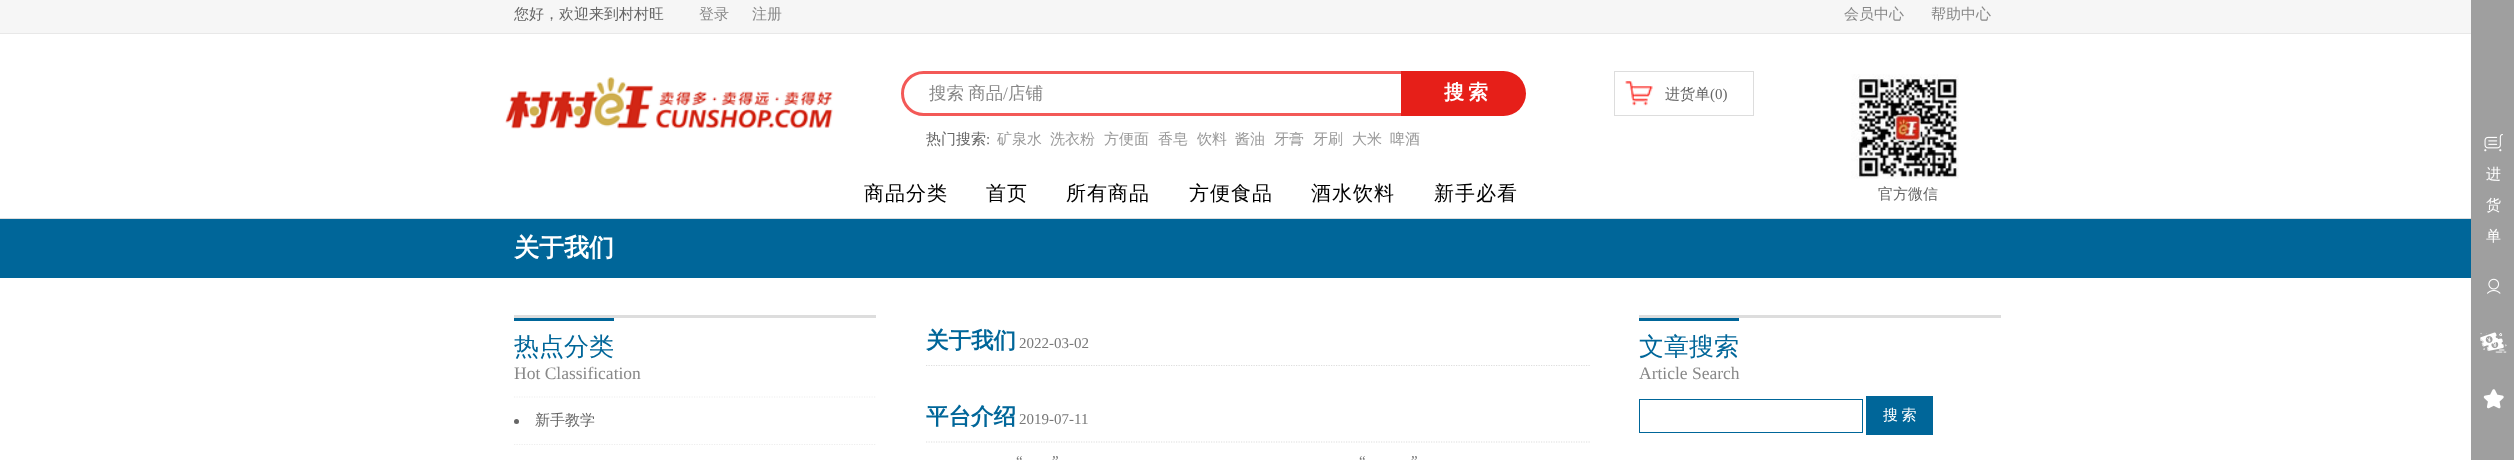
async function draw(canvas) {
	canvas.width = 2514;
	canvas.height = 460;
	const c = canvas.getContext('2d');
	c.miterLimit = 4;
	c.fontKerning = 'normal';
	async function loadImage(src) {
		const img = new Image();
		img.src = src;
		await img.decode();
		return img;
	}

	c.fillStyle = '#fff';
	c.fillRect(0, 0, 2514, 460);
	for (const [x, y, w, h, color] of [
		[0, 218, 2471, 1, '#ddd'],
		[0, 0, 2471, 33, '#f6f6f6'],
		[0, 33, 2471, 1, '#e8e8e8'],
	]) {
		c.fillStyle = color;
		c.fillRect(x, y, w, h);
	}
	c.font = '500 15px WenQuanYi Zen Hei';
	c.fillStyle = '#666';
	c.fillText('您好，欢迎来到村村旺', 514, 19);
	c.fillStyle = '#888';
	for (const [text, x, y] of [
		['登录', 699, 19],
		['注册', 752, 19],
		['会员中心', 1844, 19],
		['帮助中心', 1931, 19],
	]) {
		c.fillText(text, x, y);
	}
	c.drawImage(await loadImage('img1.png'), 505, 77, 328, 52);
	c.beginPath();
	c.roundRect(902.5, 72.5, 502, 42, [21, 0, 0, 21]);
	c.strokeStyle = '#f35957';
	c.lineWidth = 3;
	c.stroke();
	c.wordSpacing = '-1px';
	c.font = '500 17.5px WenQuanYi Zen Hei';
	c.fillText('搜索 商品', 929, 99);
	c.wordSpacing = '0px';
	c.font = '17.5px Liberation Serif';
	c.fillText('/', 1003, 99);
	c.font = '500 17.5px WenQuanYi Zen Hei';
	c.fillText('店铺', 1008, 99);
	c.fillStyle = '#e61f19';
	c.beginPath();
	c.roundRect(1401, 71, 125, 45, [0, 22.5, 22.5, 0]);
	c.fill();
	c.letterSpacing = '4px';
	c.font = 'bold 20px WenQuanYi Zen Hei';
	c.fillStyle = '#fff';
	c.fillText('搜索', 1444, 99);
	c.letterSpacing = '0px';
	c.font = '500 15px WenQuanYi Zen Hei';
	c.fillStyle = '#666';
	c.fillText('热门搜索', 926, 144);
	c.font = '15px Liberation Serif';
	c.fillText(':', 986, 144);
	c.font = '500 15px WenQuanYi Zen Hei';
	c.fillStyle = '#999';
	for (const [text, x, y] of [
		['矿泉水', 997, 144],
		['洗衣粉', 1050, 144],
		['方便面', 1104, 144],
		['香皂', 1158, 144],
		['饮料', 1197, 144],
		['酱油', 1235, 144],
		['牙膏', 1274, 144],
		['牙刷', 1313, 144],
		['大米', 1352, 144],
		['啤酒', 1390, 144],
	]) {
		c.fillText(text, x, y);
	}
	c.drawImage(await loadImage('img2.png'), 1625, 81, 28, 25);
	c.strokeStyle = '#ddd';
	c.lineWidth = 1;
	c.strokeRect(1614.5, 71.5, 139, 44);
	c.fillStyle = '#666';
	c.fillText('进货单', 1665, 99);
	c.font = '15px Liberation Serif';
	c.fillText('(0)', 1710, 99);
	c.letterSpacing = '1px';
	c.font = '500 20px WenQuanYi Zen Hei';
	c.fillStyle = '#000';
	for (const [text, x, y] of [
		['商品分类', 864, 200],
		['首页', 986, 200],
		['所有商品', 1066, 200],
		['方便食品', 1189, 200],
		['酒水饮料', 1311, 200],
		['新手必看', 1434, 200],
	]) {
		c.fillText(text, x, y);
	}
	c.drawImage(await loadImage('img3.png'), 1851, 74, 108, 105);
	c.letterSpacing = '0px';
	c.font = '500 15px WenQuanYi Zen Hei';
	c.fillStyle = '#666';
	c.fillText('官方微信', 1878, 199);
	c.fillStyle = '#9f9f9f';
	c.fillRect(2471, 0, 43, 460);
	c.drawImage(await loadImage('img4.png'), 2484, 134, 19, 18);
	c.fillStyle = '#fff';
	for (const [text, x, y] of [
		['进', 2486, 179],
		['货', 2486, 210],
		['单', 2486, 241],
	]) {
		c.fillText(text, x, y);
	}
	c.drawImage(await loadImage('img5.png'), 2487, 278, 14, 16);
	c.drawImage(await loadImage('img6.png'), 2480, 332, 27, 21);
	c.drawImage(await loadImage('img7.png'), 2483, 389, 21, 20);
	c.fillStyle = '#069';
	c.fillRect(0, 219, 2471, 59);
	c.font = 'bold 25px WenQuanYi Zen Hei';
	c.fillStyle = '#fff';
	c.fillText('关于我们', 514, 256);
	c.fillStyle = '#ddd';
	c.fillRect(514, 315, 362, 3);
	c.font = '500 25px WenQuanYi Zen Hei';
	c.fillStyle = '#069';
	c.fillText('热点分类', 514, 355);
	c.fillRect(514, 318, 100, 3);
	c.font = '17.5px Liberation Serif';
	c.fillStyle = '#888';
	c.fillText('Hot Classification', 514, 379);
	c.beginPath();
	c.moveTo(514, 397);
	c.lineTo(876, 397);
	c.strokeStyle = '#eee';
	c.lineWidth = 1.2;
	c.setLineDash([1.25, 1.25]);
	c.stroke();
	c.fillStyle = '#666';
	c.beginPath();
	c.arc(516.5, 421.5, 2.5, 0, 2 * Math.PI);
	c.fill();
	c.font = '500 15px WenQuanYi Zen Hei';
	c.fillText('新手教学', 535, 425);
	c.beginPath();
	c.moveTo(514, 444.5);
	c.lineTo(876, 444.5);
	c.stroke();
	c.font = 'bold 22.5px WenQuanYi Zen Hei';
	c.fillStyle = '#069';
	c.fillText('关于我们', 926, 348);
	c.font = '15px Liberation Serif';
	c.fillStyle = '#787878';
	c.fillText('2022-03-02', 1019, 348);
	c.beginPath();
	c.moveTo(926, 365.5);
	c.lineTo(1590, 365.5);
	c.strokeStyle = '#ddd';
	c.stroke();
	c.font = 'bold 22.5px WenQuanYi Zen Hei';
	c.fillStyle = '#069';
	c.fillText('平台介绍', 926, 424);
	c.font = '15px Liberation Serif';
	c.fillStyle = '#787878';
	c.fillText('2019-07-11', 1019, 424);
	c.beginPath();
	c.moveTo(926, 442);
	c.lineTo(1590, 442);
	c.stroke();
	for (const [text, x, y] of [
		['“', 1016, 466],
		['”', 1052, 466],
		['“', 1359, 466],
		['”', 1411, 466],
	]) {
		c.fillText(text, x, y);
	}
	c.fillStyle = '#ddd';
	c.fillRect(1639, 315, 362, 3);
	c.font = '500 25px WenQuanYi Zen Hei';
	c.fillStyle = '#069';
	c.fillText('文章搜索', 1639, 355);
	c.fillRect(1639, 318, 100, 3);
	c.font = '17.5px Liberation Serif';
	c.fillStyle = '#888';
	c.fillText('Article Search', 1639, 379);
	c.strokeStyle = '#069';
	c.lineWidth = 1;
	c.setLineDash([]);
	c.strokeRect(1639.5, 399.5, 223, 33);
	c.fillStyle = '#069';
	c.fillRect(1866, 396, 67, 39);
	c.wordSpacing = '-1px';
	c.font = '500 15px WenQuanYi Zen Hei';
	c.fillStyle = '#fff';
	c.fillText('搜 索', 1883, 420);
}

draw(document.querySelector('canvas'));
